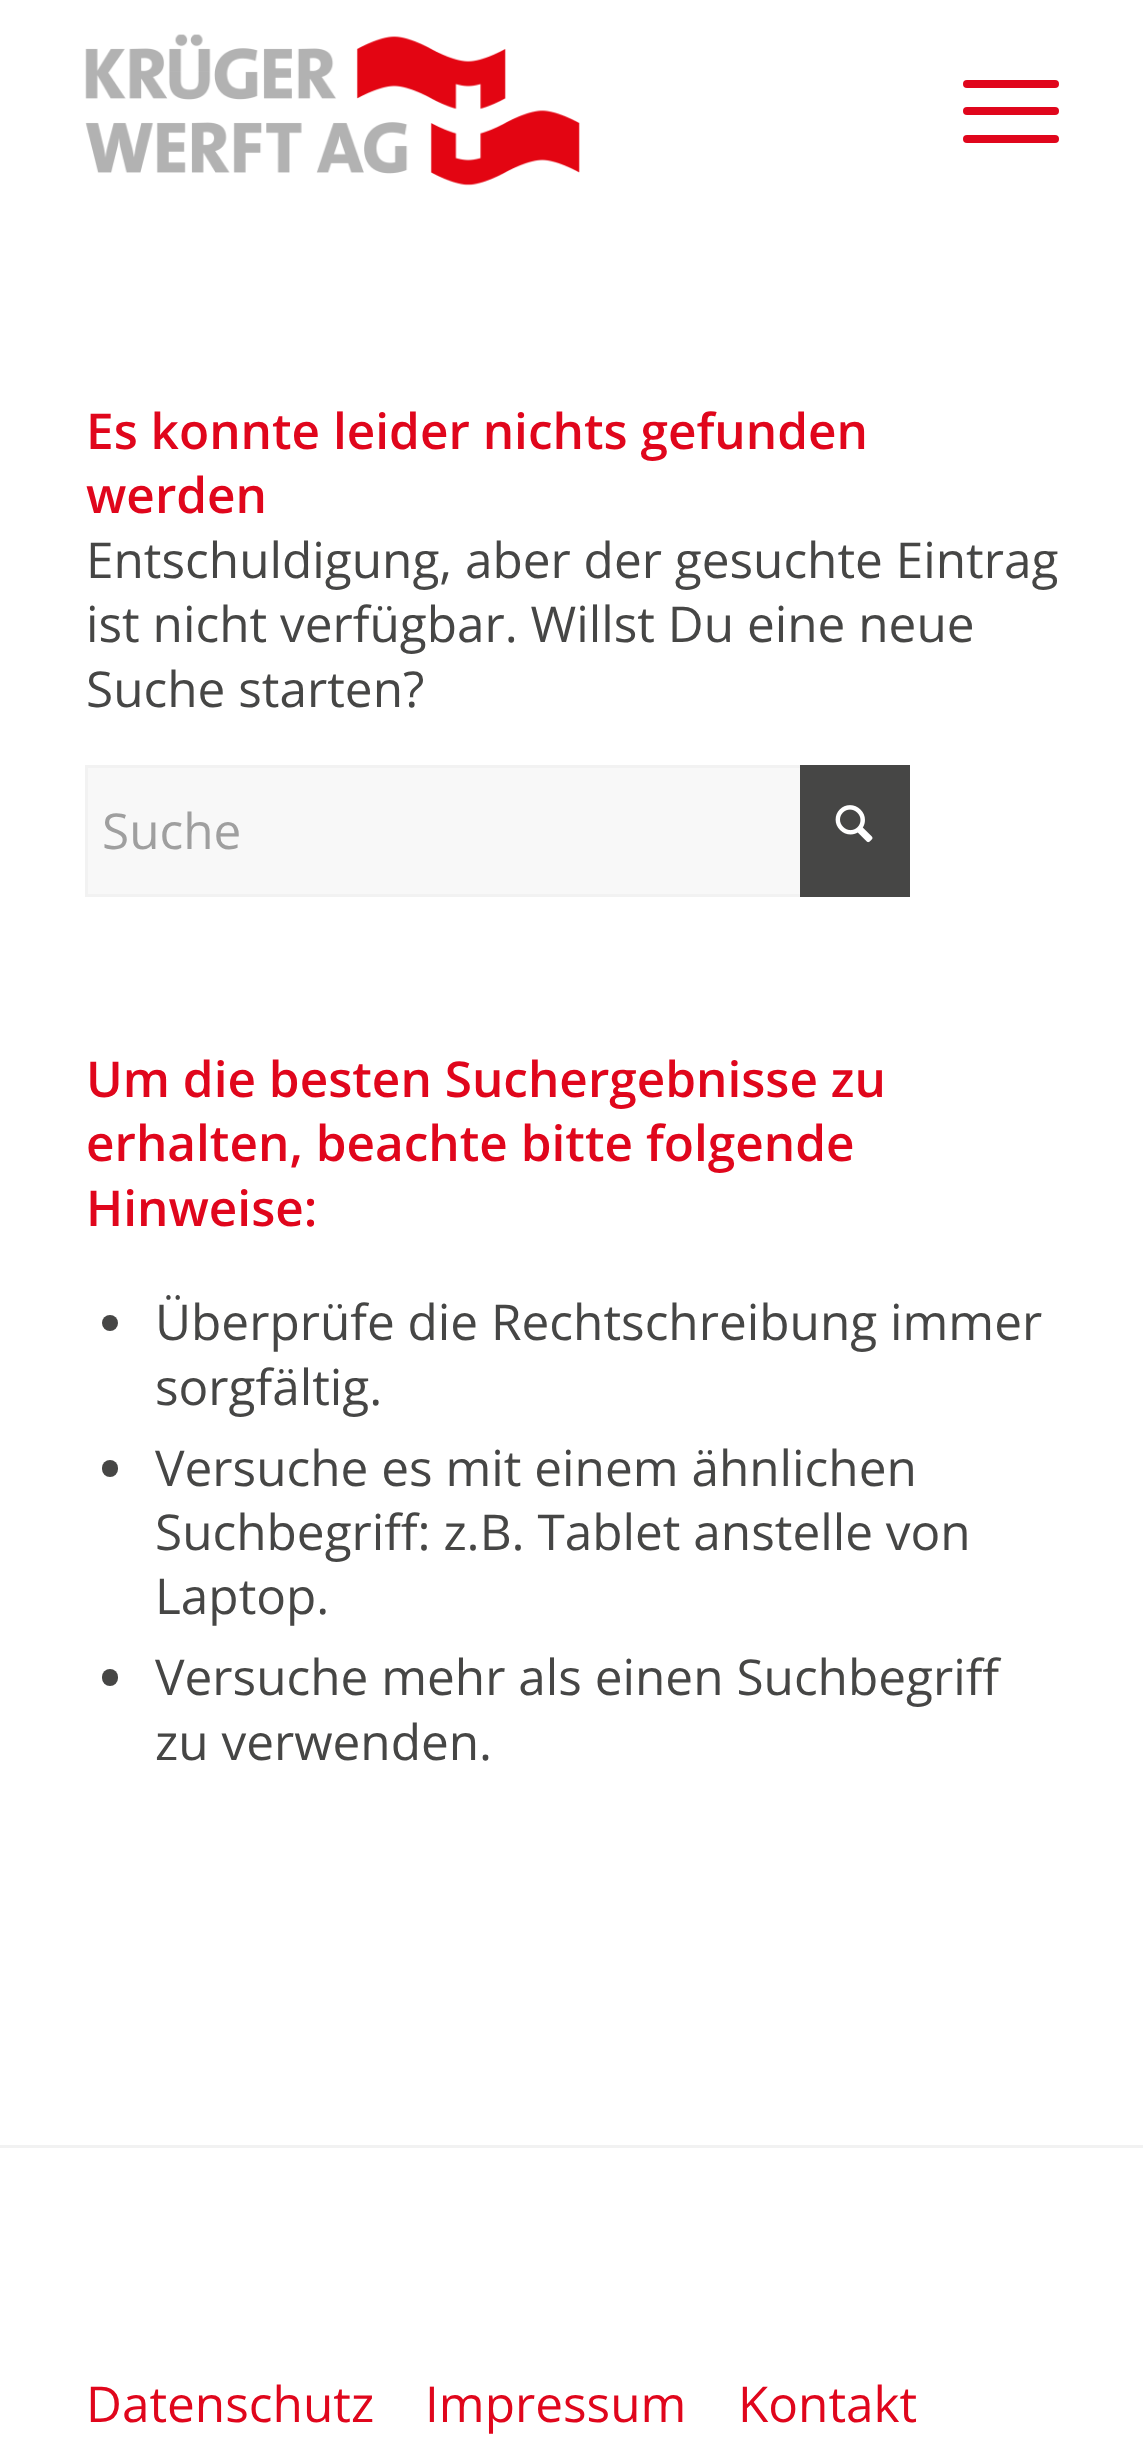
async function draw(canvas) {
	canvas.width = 1143;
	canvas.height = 2448;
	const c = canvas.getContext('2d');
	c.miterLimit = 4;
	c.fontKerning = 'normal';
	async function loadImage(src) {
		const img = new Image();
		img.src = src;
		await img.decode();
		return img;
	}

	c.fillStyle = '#fff';
	c.fillRect(0, 0, 1143, 2448);
	c.drawImage(await loadImage('img1.png'), 85, 34, 495, 152);
	c.fillStyle = '#e0061c';
	c.beginPath();
	c.roundRect(963, 107, 96, 8, 4);
	c.fill();
	c.beginPath();
	c.roundRect(963, 80, 96, 8, 4);
	c.fill();
	c.beginPath();
	c.roundRect(963, 135, 96, 8, 4);
	c.fill();
	c.font = '600 49.5px Open Sans';
	c.fillText('Es konnte leider nichts gefunden', 86, 449);
	c.fillText('werden', 86, 513);
	c.font = '49.5px Open Sans';
	c.fillStyle = '#464645';
	for (const [text, x, y] of [
		['Entschuldigung, aber der gesuchte Eintrag', 86, 578],
		['ist nicht verfügbar. Willst Du eine neue', 86, 642],
		['Suche starten?', 86, 707],
	]) {
		c.fillText(text, x, y);
	}
	c.fillStyle = '#f8f8f8';
	c.fillRect(88, 768, 712, 126);
	c.strokeStyle = '#f2f2f2';
	c.lineWidth = 3;
	c.strokeRect(86.5, 766.5, 822, 129);
	c.fillStyle = '#464645';
	c.fillRect(800, 765, 110, 132);
	c.fillStyle = '#9f9f9f';
	c.fillText('Suche', 102, 849);
	c.drawImage(await loadImage('img2.png'), 835, 805, 38, 38);
	c.font = '600 49.5px Open Sans';
	c.fillStyle = '#e0061c';
	for (const [text, x, y] of [
		['Um die besten Suchergebnisse zu', 86, 1097],
		['erhalten, beachte bitte folgende', 86, 1161],
		['Hinweise:', 86, 1226],
	]) {
		c.fillText(text, x, y);
	}
	c.fillStyle = '#464645';
	c.beginPath();
	c.arc(110, 1323, 8, 0, 2 * Math.PI);
	c.fill();
	c.font = '49.5px Open Sans';
	c.fillText('Überprüfe die Rechtschreibung immer', 155, 1340);
	c.fillText('sorgfältig.', 155, 1405);
	c.beginPath();
	c.roundRect(102, 1460, 16, 17, 8);
	c.fill();
	for (const [text, x, y] of [
		['Versuche es mit einem ähnlichen', 155, 1486],
		['Suchbegriff: z.B. Tablet anstelle von', 155, 1550],
		['Laptop.', 155, 1614],
	]) {
		c.fillText(text, x, y);
	}
	c.beginPath();
	c.roundRect(102, 1669, 16, 17, 8);
	c.fill();
	c.fillText('Versuche mehr als einen Suchbegriff', 155, 1695);
	c.fillText('zu verwenden.', 155, 1760);
	c.fillStyle = '#f2f2f2';
	c.fillRect(0, 2145, 1143, 3);
	c.fillStyle = '#e0061c';
	for (const [text, x, y] of [
		['Datenschutz', 86, 2422],
		['Impressum', 425, 2422],
		['Kontakt', 738, 2422],
	]) {
		c.fillText(text, x, y);
	}
}

draw(document.querySelector('canvas'));
